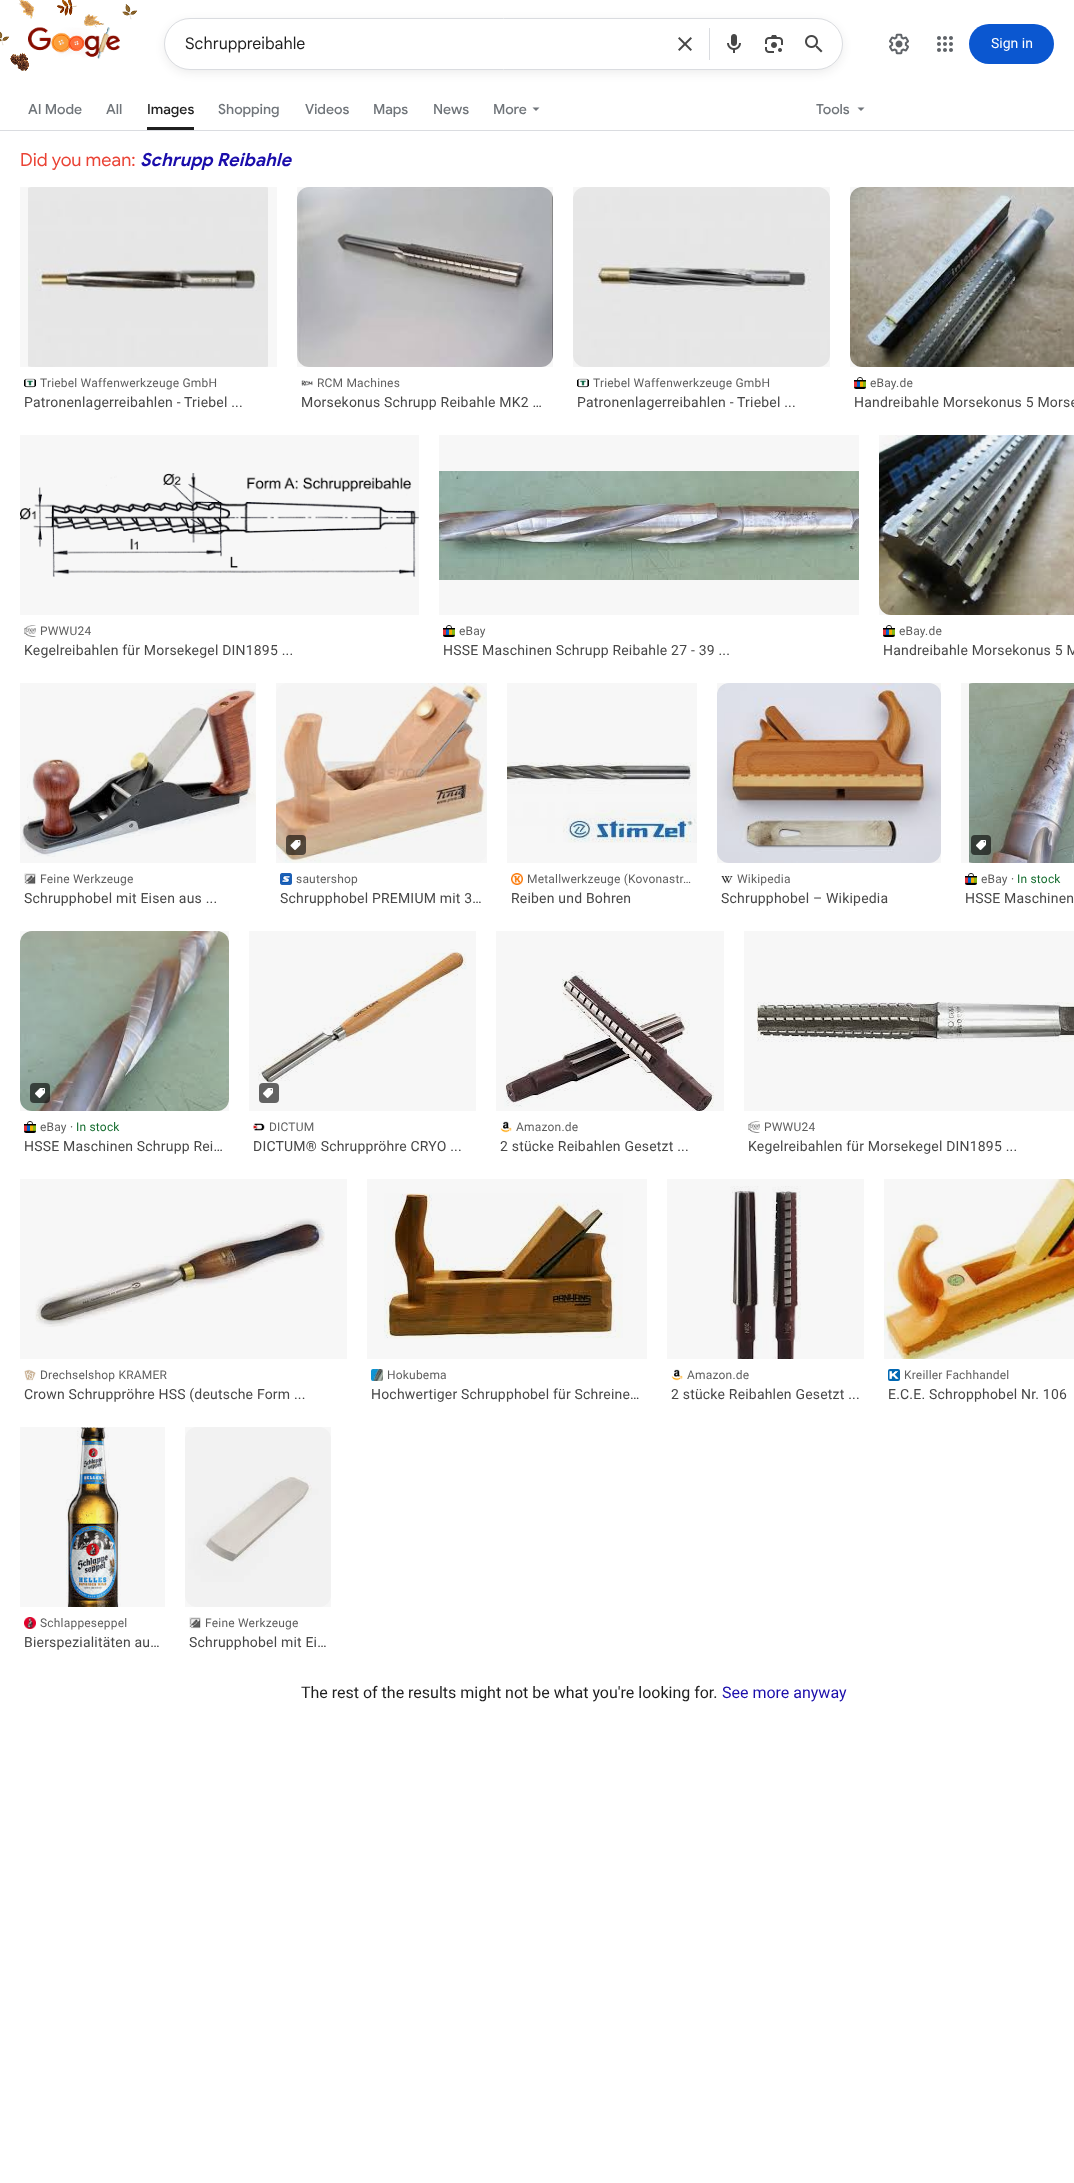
async function draw(canvas) {
	canvas.width = 1074;
	canvas.height = 2183;
	const c = canvas.getContext('2d');
	c.miterLimit = 4;
	c.fontKerning = 'normal';
	async function loadImage(src) {
		const img = new Image();
		img.src = src;
		await img.decode();
		return img;
	}

	c.fillStyle = '#fff';
	c.fillRect(0, 0, 1074, 2183);
	c.drawImage(await loadImage('img1.png'), 0, 0, 138, 71);
	c.drawImage(await loadImage('img2.png'), 28, 27, 92, 32);
	c.fillStyle = '#1f1f1f14';
	c.filter = 'blur(5px)';
	c.beginPath();
	c.roundRect(164, 21, 679, 52, 26);
	c.fill();
	c.filter = 'none';
	c.fillStyle = '#fff';
	c.beginPath();
	c.roundRect(164.5, 18.5, 678, 51, 25.5);
	c.fill();
	c.strokeStyle = '#dadce0';
	c.stroke();
	c.font = '16px "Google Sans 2"';
	c.fillStyle = '#1f1f1f';
	c.fillText('Schruppreibahle', 185, 49);
	c.drawImage(await loadImage('img3.png'), 678, 37, 14, 14);
	c.fillStyle = '#dadce0';
	c.fillRect(709, 28, 1, 32);
	c.drawImage(await loadImage('img4.png'), 727, 34, 14, 19);
	c.drawImage(await loadImage('img5.png'), 765, 35, 18, 18);
	c.drawImage(await loadImage('img6.png'), 805, 35, 18, 18);
	c.drawImage(await loadImage('img7.png'), 889, 33, 20, 22);
	c.drawImage(await loadImage('img8.png'), 937, 36, 16, 16);
	c.fillStyle = '#0b57d0';
	c.beginPath();
	c.roundRect(969, 24, 85, 40, 20);
	c.fill();
	c.font = '14px Roboto';
	c.fillStyle = '#fff';
	c.fillText('Sign in', 991, 48);
	c.font = '500 14px Google Sans';
	c.fillStyle = '#70757a';
	c.fillText('AI Mode', 28, 114);
	c.fillText('All', 106, 114);
	c.fillStyle = '#1f1f1f';
	c.fillRect(147, 127, 47, 3);
	c.fillText('Images', 147, 114);
	c.fillStyle = '#70757a';
	for (const [text, x, y] of [
		['Shopping', 218, 114],
		['Videos', 305, 114],
		['Maps', 373, 114],
		['News', 433, 114],
		['More', 493, 114],
	]) {
		c.fillText(text, x, y);
	}
	c.beginPath();
	c.moveTo(532.5, 107.5);
	c.lineTo(536, 111);
	c.lineTo(539.5, 107.5);
	c.closePath();
	c.fill();
	c.fillText('Tools', 816, 114);
	c.beginPath();
	c.moveTo(857.5, 107.5);
	c.lineTo(861, 111);
	c.lineTo(864.5, 107.5);
	c.closePath();
	c.fill();
	c.fillStyle = '#dadce0';
	c.fillRect(0, 130, 1074, 1);
	c.font = '18px Google Sans';
	c.fillStyle = '#ea4335';
	c.fillText('Did you mean:', 20, 166);
	c.font = 'italic bold 18px Google Sans';
	c.fillStyle = '#1a0dab';
	c.fillText('Schrupp Reibahle', 140, 166);
	c.drawImage(await loadImage('img9.png'), 28, 187, 240, 180);
	c.fillStyle = '#00000008';
	c.fillRect(20, 187, 257, 180);
	c.drawImage(await loadImage('img10.png'), 24, 378, 12, 10);
	c.letterSpacing = '0.2px';
	c.font = '12px Roboto';
	c.fillStyle = '#5e5e5e';
	c.fillText('Triebel Waffenwerkzeuge GmbH', 40, 387);
	c.font = '14px Roboto';
	c.fillStyle = '#474747';
	c.fillText('Patronenlagerreibahlen - Triebel ...', 24, 407);
	c.drawImage(await loadImage('img11.png'), 297, 187, 256, 180);
	c.fillStyle = '#00000008';
	c.fillRect(297, 187, 256, 180);
	c.drawImage(await loadImage('img12.png'), 301, 380, 12, 6);
	c.font = '12px Roboto';
	c.fillStyle = '#5e5e5e';
	c.fillText('RCM Machines', 317, 387);
	c.font = '14px Roboto';
	c.fillStyle = '#474747';
	c.fillText('Morsekonus Schrupp Reibahle MK2 …', 301, 407);
	c.drawImage(await loadImage('img13.png'), 573, 187, 257, 180);
	c.fillStyle = '#00000008';
	c.fillRect(573, 187, 257, 180);
	c.drawImage(await loadImage('img10.png'), 577, 378, 12, 10);
	c.font = '12px Roboto';
	c.fillStyle = '#5e5e5e';
	c.fillText('Triebel Waffenwerkzeuge GmbH', 593, 387);
	c.font = '14px Roboto';
	c.fillStyle = '#474747';
	c.fillText('Patronenlagerreibahlen - Triebel ...', 577, 407);
	c.drawImage(await loadImage('img14.png'), 850, 187, 224, 180);
	c.fillStyle = '#00000008';
	c.fillRect(850, 187, 224, 180);
	c.drawImage(await loadImage('img15.png'), 854, 377, 12, 12);
	c.font = '12px Roboto';
	c.fillStyle = '#5e5e5e';
	c.fillText('eBay.de', 870, 387);
	c.font = '14px Roboto';
	c.fillStyle = '#474747';
	c.fillText('Handreibahle Morsekonus 5 Morse', 854, 407);
	c.drawImage(await loadImage('img16.png'), 20, 473, 399, 104);
	c.fillStyle = '#00000008';
	c.fillRect(20, 435, 399, 180);
	c.drawImage(await loadImage('img17.png'), 24, 625, 12, 12);
	c.font = '12px Roboto';
	c.fillStyle = '#5e5e5e';
	c.fillText('PWWU24', 40, 635);
	c.font = '14px Roboto';
	c.fillStyle = '#474747';
	c.fillText('Kegelreibahlen für Morsekegel DIN1895 ...', 24, 655);
	c.drawImage(await loadImage('img18.png'), 439, 471, 420, 109);
	c.fillStyle = '#00000008';
	c.fillRect(439, 435, 420, 180);
	c.drawImage(await loadImage('img19.png'), 443, 625, 12, 12);
	c.font = '12px Roboto';
	c.fillStyle = '#5e5e5e';
	c.fillText('eBay', 459, 635);
	c.font = '14px Roboto';
	c.fillStyle = '#474747';
	c.fillText('HSSE Maschinen Schrupp Reibahle 27 - 39 ...', 443, 655);
	c.drawImage(await loadImage('img20.png'), 879, 435, 195, 180);
	c.fillStyle = '#00000008';
	c.fillRect(879, 435, 195, 180);
	c.drawImage(await loadImage('img15.png'), 883, 625, 12, 12);
	c.font = '12px Roboto';
	c.fillStyle = '#5e5e5e';
	c.fillText('eBay.de', 899, 635);
	c.font = '14px Roboto';
	c.fillStyle = '#474747';
	c.fillText('Handreibahle Morsekonus 5 M', 883, 655);
	c.drawImage(await loadImage('img21.png'), 20, 689, 236, 168);
	c.fillStyle = '#00000008';
	c.fillRect(20, 683, 236, 180);
	c.drawImage(await loadImage('img22.png'), 24, 873, 12, 12);
	c.font = '12px Roboto';
	c.fillStyle = '#5e5e5e';
	c.fillText('Feine Werkzeuge', 40, 883);
	c.font = '14px Roboto';
	c.fillStyle = '#474747';
	c.fillText('Schrupphobel mit Eisen aus ...', 24, 903);
	c.drawImage(await loadImage('img23.png'), 276, 683, 211, 180);
	c.fillStyle = '#00000008';
	c.fillRect(276, 683, 211, 180);
	c.fillStyle = '#00000099';
	c.beginPath();
	c.roundRect(286, 835, 20, 20, 4);
	c.fill();
	c.drawImage(await loadImage('img24.png'), 290, 840, 11, 10);
	c.drawImage(await loadImage('img25.png'), 280, 873, 12, 12);
	c.font = '12px Roboto';
	c.fillStyle = '#5e5e5e';
	c.fillText('sautershop', 296, 883);
	c.font = '14px Roboto';
	c.fillStyle = '#474747';
	c.fillText('Schrupphobel PREMIUM mit 3…', 280, 903);
	c.drawImage(await loadImage('img26.png'), 507, 762, 190, 81);
	c.fillStyle = '#00000008';
	c.fillRect(507, 683, 190, 180);
	c.drawImage(await loadImage('img27.png'), 511, 873, 12, 12);
	c.font = '12px Roboto';
	c.fillStyle = '#5e5e5e';
	c.fillText('Metallwerkzeuge (Kovonastr…', 527, 883);
	c.font = '14px Roboto';
	c.fillStyle = '#474747';
	c.fillText('Reiben und Bohren', 511, 903);
	c.drawImage(await loadImage('img28.png'), 717, 683, 224, 180);
	c.fillStyle = '#00000008';
	c.fillRect(717, 683, 224, 180);
	c.drawImage(await loadImage('img29.png'), 721, 876, 12, 8);
	c.font = '12px Roboto';
	c.fillStyle = '#5e5e5e';
	c.fillText('Wikipedia', 737, 883);
	c.font = '14px Roboto';
	c.fillStyle = '#474747';
	c.fillText('Schrupphobel – Wikipedia', 721, 903);
	c.drawImage(await loadImage('img30.png'), 969, 683, 105, 180);
	c.fillStyle = '#00000008';
	c.fillRect(961, 683, 113, 180);
	c.fillStyle = '#00000099';
	c.beginPath();
	c.roundRect(971, 835, 20, 20, 4);
	c.fill();
	c.drawImage(await loadImage('img31.png'), 976, 840, 10, 10);
	c.drawImage(await loadImage('img15.png'), 965, 873, 12, 12);
	c.font = '12px Roboto';
	c.fillStyle = '#5e5e5e';
	c.fillText('eBay ·', 981, 883);
	c.fillStyle = '#146c2e';
	c.fillText('In stock', 1017, 883);
	c.font = '14px Roboto';
	c.fillStyle = '#474747';
	c.fillText('HSSE Maschinen', 965, 903);
	c.drawImage(await loadImage('img32.png'), 20, 931, 209, 180);
	c.fillStyle = '#00000008';
	c.fillRect(20, 931, 209, 180);
	c.fillStyle = '#00000099';
	c.beginPath();
	c.roundRect(30, 1083, 20, 20, 4);
	c.fill();
	c.drawImage(await loadImage('img33.png'), 35, 1088, 10, 10);
	c.drawImage(await loadImage('img19.png'), 24, 1121, 12, 12);
	c.font = '12px Roboto';
	c.fillStyle = '#5e5e5e';
	c.fillText('eBay ·', 40, 1131);
	c.fillStyle = '#146c2e';
	c.fillText('In stock', 76, 1131);
	c.font = '14px Roboto';
	c.fillStyle = '#474747';
	c.fillText('HSSE Maschinen Schrupp Rei…', 24, 1151);
	c.drawImage(await loadImage('img34.png'), 258, 949, 209, 139);
	c.fillStyle = '#00000008';
	c.fillRect(249, 931, 227, 180);
	c.fillStyle = '#00000099';
	c.beginPath();
	c.roundRect(259, 1083, 20, 20, 4);
	c.fill();
	c.drawImage(await loadImage('img35.png'), 263, 1088, 10, 10);
	c.drawImage(await loadImage('img36.png'), 253, 1123, 12, 8);
	c.font = '12px Roboto';
	c.fillStyle = '#5e5e5e';
	c.fillText('DICTUM', 269, 1131);
	c.font = '14px Roboto';
	c.fillStyle = '#474747';
	c.fillText('DICTUM® Schruppröhre CRYO ...', 253, 1151);
	c.drawImage(await loadImage('img37.png'), 504, 971, 210, 140);
	c.fillStyle = '#00000008';
	c.fillRect(496, 931, 228, 180);
	c.drawImage(await loadImage('img38.png'), 500, 1121, 12, 12);
	c.font = '12px Roboto';
	c.fillStyle = '#5e5e5e';
	c.fillText('Amazon.de', 516, 1131);
	c.font = '14px Roboto';
	c.fillStyle = '#474747';
	c.fillText('2 stücke Reibahlen Gesetzt ...', 500, 1151);
	c.drawImage(await loadImage('img39.png'), 757, 1002, 317, 40);
	c.fillStyle = '#00000008';
	c.fillRect(744, 931, 330, 180);
	c.drawImage(await loadImage('img17.png'), 748, 1121, 12, 12);
	c.font = '12px Roboto';
	c.fillStyle = '#5e5e5e';
	c.fillText('PWWU24', 764, 1131);
	c.font = '14px Roboto';
	c.fillStyle = '#474747';
	c.fillText('Kegelreibahlen für Morsekegel DIN1895 ...', 748, 1151);
	c.drawImage(await loadImage('img40.png'), 35, 1218, 290, 109);
	c.fillStyle = '#00000008';
	c.fillRect(20, 1179, 327, 180);
	c.drawImage(await loadImage('img41.png'), 24, 1369, 12, 12);
	c.font = '12px Roboto';
	c.fillStyle = '#5e5e5e';
	c.fillText('Drechselshop KRAMER', 40, 1379);
	c.font = '14px Roboto';
	c.fillStyle = '#474747';
	c.fillText('Crown Schruppröhre HSS (deutsche Form ...', 24, 1399);
	c.drawImage(await loadImage('img42.png'), 384, 1193, 239, 146);
	c.fillStyle = '#00000008';
	c.fillRect(367, 1179, 280, 180);
	c.drawImage(await loadImage('img43.png'), 371, 1369, 12, 12);
	c.font = '12px Roboto';
	c.fillStyle = '#5e5e5e';
	c.fillText('Hokubema', 387, 1379);
	c.font = '14px Roboto';
	c.fillStyle = '#474747';
	c.fillText('Hochwertiger Schrupphobel für Schreine…', 371, 1399);
	c.drawImage(await loadImage('img44.png'), 730, 1186, 71, 173);
	c.fillStyle = '#00000008';
	c.fillRect(667, 1179, 197, 180);
	c.drawImage(await loadImage('img45.png'), 671, 1369, 12, 12);
	c.font = '12px Roboto';
	c.fillStyle = '#5e5e5e';
	c.fillText('Amazon.de', 687, 1379);
	c.font = '14px Roboto';
	c.fillStyle = '#474747';
	c.fillText('2 stücke Reibahlen Gesetzt ...', 671, 1399);
	c.drawImage(await loadImage('img46.png'), 884, 1179, 190, 180);
	c.fillStyle = '#00000008';
	c.fillRect(884, 1179, 190, 180);
	c.drawImage(await loadImage('img47.png'), 888, 1369, 12, 12);
	c.font = '12px Roboto';
	c.fillStyle = '#5e5e5e';
	c.fillText('Kreiller Fachhandel', 904, 1379);
	c.font = '14px Roboto';
	c.fillStyle = '#474747';
	c.fillText('E.C.E. Schropphobel Nr. 106', 888, 1399);
	c.drawImage(await loadImage('img48.png'), 66, 1427, 55, 180);
	c.fillStyle = '#00000008';
	c.fillRect(20, 1427, 145, 180);
	c.drawImage(await loadImage('img49.png'), 24, 1617, 12, 12);
	c.font = '12px Roboto';
	c.fillStyle = '#5e5e5e';
	c.fillText('Schlappeseppel', 40, 1627);
	c.font = '14px Roboto';
	c.fillStyle = '#474747';
	c.fillText('Bierspezialitäten au…', 24, 1647);
	c.drawImage(await loadImage('img50.png'), 185, 1427, 146, 180);
	c.fillStyle = '#00000008';
	c.fillRect(185, 1427, 146, 180);
	c.drawImage(await loadImage('img22.png'), 189, 1617, 12, 12);
	c.font = '12px Roboto';
	c.fillStyle = '#5e5e5e';
	c.fillText('Feine Werkzeuge', 205, 1627);
	c.font = '14px Roboto';
	c.fillStyle = '#474747';
	c.fillText('Schrupphobel mit Ei…', 189, 1647);
	c.letterSpacing = '0px';
	c.font = '16px Roboto';
	c.fillStyle = '#1f1f1f';
	c.fillText('The rest of the results might not be what you\'re looking for.', 301, 1698);
	c.fillStyle = '#1a0dab';
	c.fillText('See more anyway', 722, 1698);
}

draw(document.querySelector('canvas'));
